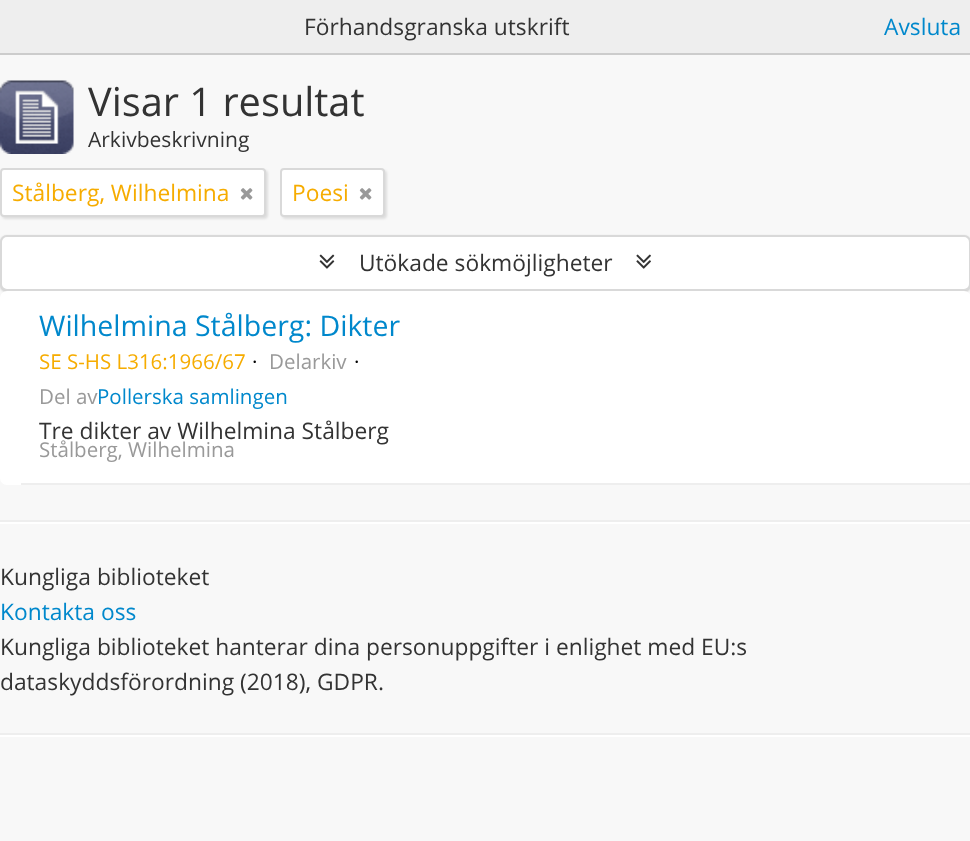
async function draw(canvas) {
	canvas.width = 970;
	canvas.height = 841;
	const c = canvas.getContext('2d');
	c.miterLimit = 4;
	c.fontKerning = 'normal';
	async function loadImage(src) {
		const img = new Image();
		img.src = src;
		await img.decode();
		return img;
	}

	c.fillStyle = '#f8f8f8';
	c.fillRect(0, 0, 970, 841);
	c.fillStyle = '#eee';
	c.fillRect(0, 0, 970, 53);
	c.fillStyle = '#ccc';
	c.fillRect(0, 53, 970, 2);
	c.font = '22.75px Open Sans';
	c.fillStyle = '#333';
	c.fillText('Förhandsgranska utskrift', 304, 35);
	c.fillStyle = '#08c';
	c.fillText('Avsluta', 884, 35);
	c.drawImage(await loadImage('img1.png'), 0, 80, 74, 74);
	c.font = '39.75px Open Sans';
	c.fillStyle = '#333';
	c.fillText('Visar 1 resultat', 88, 116);
	c.font = '21px Open Sans';
	c.fillText('Arkivbeskrivning', 88, 147);
	c.fillStyle = '#0000001a';
	c.filter = 'blur(1px)';
	c.beginPath();
	c.roundRect(2, 170, 266, 49, 4);
	c.fill();
	c.filter = 'none';
	c.fillStyle = '#fff';
	c.beginPath();
	c.roundRect(1, 169, 264, 47, 3);
	c.fill();
	c.strokeStyle = '#d9d9d9';
	c.lineWidth = 2;
	c.stroke();
	c.font = '22.75px Open Sans';
	c.fillStyle = '#f6ac00';
	c.fillText('Stålberg, Wilhelmina', 12, 201);
	c.drawImage(await loadImage('img2.png'), 240, 188, 13, 12);
	c.fillStyle = '#0000001a';
	c.filter = 'blur(1px)';
	c.beginPath();
	c.roundRect(282, 170, 105, 49, 4);
	c.fill();
	c.filter = 'none';
	c.fillStyle = '#fff';
	c.beginPath();
	c.roundRect(281, 169, 103, 47, 3);
	c.fill();
	c.stroke();
	c.fillStyle = '#f6ac00';
	c.fillText('Poesi', 292, 201);
	c.drawImage(await loadImage('img2.png'), 359, 188, 13, 12);
	c.fillStyle = '#00000033';
	c.filter = 'blur(1px)';
	c.beginPath();
	c.roundRect(0, 236, 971, 56, 7);
	c.fill();
	c.filter = 'none';
	c.fillStyle = '#fff';
	c.beginPath();
	c.roundRect(1, 236, 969, 54, 6);
	c.fill();
	c.stroke();
	c.drawImage(await loadImage('img3.png'), 319, 254, 16, 15);
	c.fillStyle = '#333';
	c.fillText('Utökade sökmöjligheter', 359, 271);
	c.drawImage(await loadImage('img4.png'), 636, 254, 15, 15);
	c.fillStyle = '#fff';
	c.beginPath();
	c.roundRect(0, 291, 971, 194, 7);
	c.fill();
	c.fillStyle = '#eee';
	c.fillRect(21, 483, 949, 2);
	c.font = '28.5px Open Sans';
	c.fillStyle = '#08c';
	c.fillText('Wilhelmina Stålberg: Dikter', 39, 336);
	c.font = '20.5px Open Sans';
	c.fillStyle = '#f6ac00';
	c.fillText('SE S-HS L316:1966/67', 39, 369);
	c.fillStyle = '#000';
	c.fillText('·', 252, 369);
	c.fillStyle = '#999';
	c.fillText('Delarkiv', 269, 369);
	c.fillStyle = '#000';
	c.fillText('·', 354, 369);
	c.fillStyle = '#999';
	c.fillText('Del av', 39, 404);
	c.fillStyle = '#08c';
	c.fillText('Pollerska samlingen', 97, 404);
	c.font = '22.75px Open Sans';
	c.fillStyle = '#333';
	c.fillText('Tre dikter av Wilhelmina Stålberg', 39, 439);
	c.font = '20.5px Open Sans';
	c.fillStyle = '#999';
	c.fillText('Stålberg, Wilhelmina', 39, 457);
	c.fillStyle = '#eee';
	c.fillRect(0, 520, 970, 2);
	c.fillStyle = '#fff';
	c.fillRect(0, 522, 970, 2);
	c.font = '22.75px Open Sans';
	c.fillStyle = '#333';
	c.fillText('Kungliga biblioteket', 0, 585);
	c.fillStyle = '#08c';
	c.fillText('Kontakta oss', 0, 620);
	c.fillStyle = '#333';
	c.fillText('Kungliga biblioteket hanterar dina personuppgifter i enlighet med EU:s', 0, 655);
	c.fillText('dataskyddsförordning (2018), GDPR.', 0, 690);
	c.fillStyle = '#eee';
	c.fillRect(0, 733, 970, 2);
	c.fillStyle = '#fff';
	c.fillRect(0, 735, 970, 2);
}

draw(document.querySelector('canvas'));
